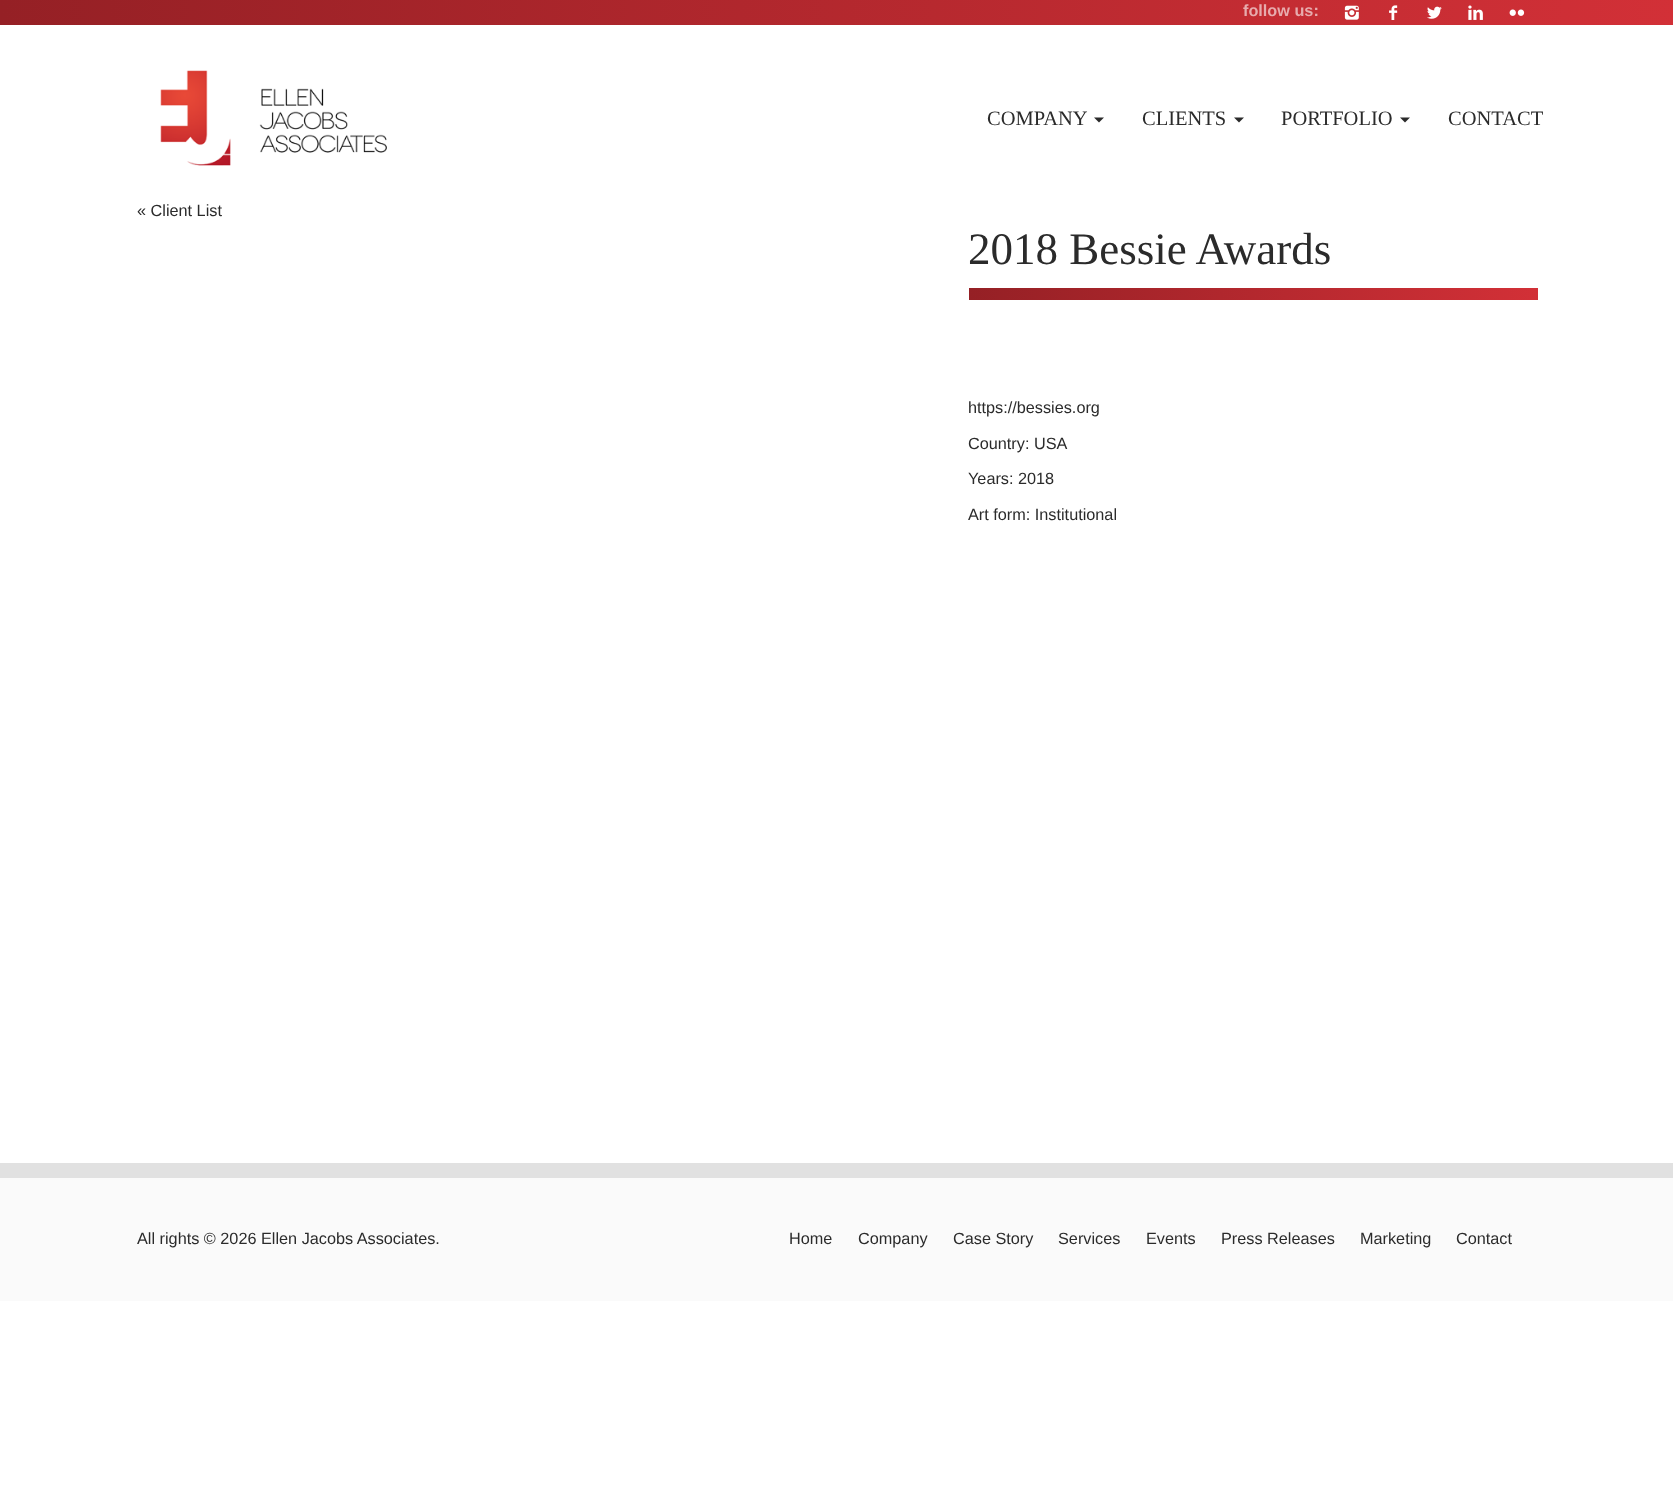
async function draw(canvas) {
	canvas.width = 1673;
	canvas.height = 1502;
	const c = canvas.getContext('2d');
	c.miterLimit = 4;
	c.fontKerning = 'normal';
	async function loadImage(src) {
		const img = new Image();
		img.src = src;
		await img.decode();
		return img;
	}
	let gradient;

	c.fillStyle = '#fff';
	c.fillRect(0, 0, 1673, 1502);
	gradient = c.createLinearGradient(0, 13, 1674, 12);
	gradient.addColorStop(0, '#952025');
	gradient.addColorStop(1, '#d23037');
	c.fillStyle = gradient;
	c.fillRect(0, 0, 1673, 25);
	c.font = 'bold 16.25px Liberation Sans';
	c.fillStyle = '#e7abad';
	c.fillText('follow us:', 1243, 16);
	c.drawImage(await loadImage('img1.png'), 1344, 5, 15, 15);
	c.drawImage(await loadImage('img2.png'), 1389, 5, 9, 15);
	c.drawImage(await loadImage('img3.png'), 1427, 6, 15, 13);
	c.drawImage(await loadImage('img4.png'), 1468, 5, 15, 15);
	c.drawImage(await loadImage('img5.png'), 1509, 9, 16, 7);
	c.drawImage(await loadImage('img6.png'), 160, 70, 227, 96);
	c.font = '20.5px Liberation Serif';
	c.fillStyle = '#2b2b2b';
	c.fillText('COMPANY', 987, 125);
	c.beginPath();
	c.moveTo(1094, 117.5);
	c.lineTo(1104, 117.5);
	c.lineTo(1099, 122.5);
	c.closePath();
	c.fill();
	c.fillText('CLIENTS', 1142, 125);
	c.beginPath();
	c.moveTo(1234, 117.5);
	c.lineTo(1244, 117.5);
	c.lineTo(1239, 122.5);
	c.closePath();
	c.fill();
	c.fillText('PORTFOLIO', 1281, 125);
	c.beginPath();
	c.moveTo(1400, 117.5);
	c.lineTo(1410, 117.5);
	c.lineTo(1405, 122.5);
	c.closePath();
	c.fill();
	c.fillText('CONTACT', 1448, 125);
	c.font = '16.25px Liberation Sans';
	c.fillText('« Client List', 137, 216);
	c.font = '45px Liberation Serif';
	c.fillText('2018 Bessie Awards', 968, 264);
	gradient = c.createLinearGradient(969, 294, 1538, 294);
	gradient.addColorStop(0, '#952025');
	gradient.addColorStop(1, '#d23037');
	c.fillStyle = gradient;
	c.fillRect(969, 288, 569, 12);
	c.font = '16.25px Liberation Sans';
	c.fillStyle = '#2b2b2b';
	for (const [text, x, y] of [
		['https://bessies.org', 968, 413],
		['Country: USA', 968, 449],
		['Years: 2018', 968, 484],
		['Art form: Institutional', 968, 520],
	]) {
		c.fillText(text, x, y);
	}
	c.fillStyle = '#fafafa';
	c.fillRect(0, 1178, 1673, 123);
	c.fillStyle = '#e1e1e1';
	c.fillRect(0, 1163, 1673, 15);
	c.fillStyle = '#2b2b2b';
	for (const [text, x, y] of [
		['All rights © 2026 Ellen Jacobs Associates.', 137, 1244],
		['Home', 789, 1244],
		['Company', 858, 1244],
		['Case Story', 953, 1244],
		['Services', 1058, 1244],
		['Events', 1146, 1244],
		['Press Releases', 1221, 1244],
		['Marketing', 1360, 1244],
		['Contact', 1456, 1244],
	]) {
		c.fillText(text, x, y);
	}
}

draw(document.querySelector('canvas'));
